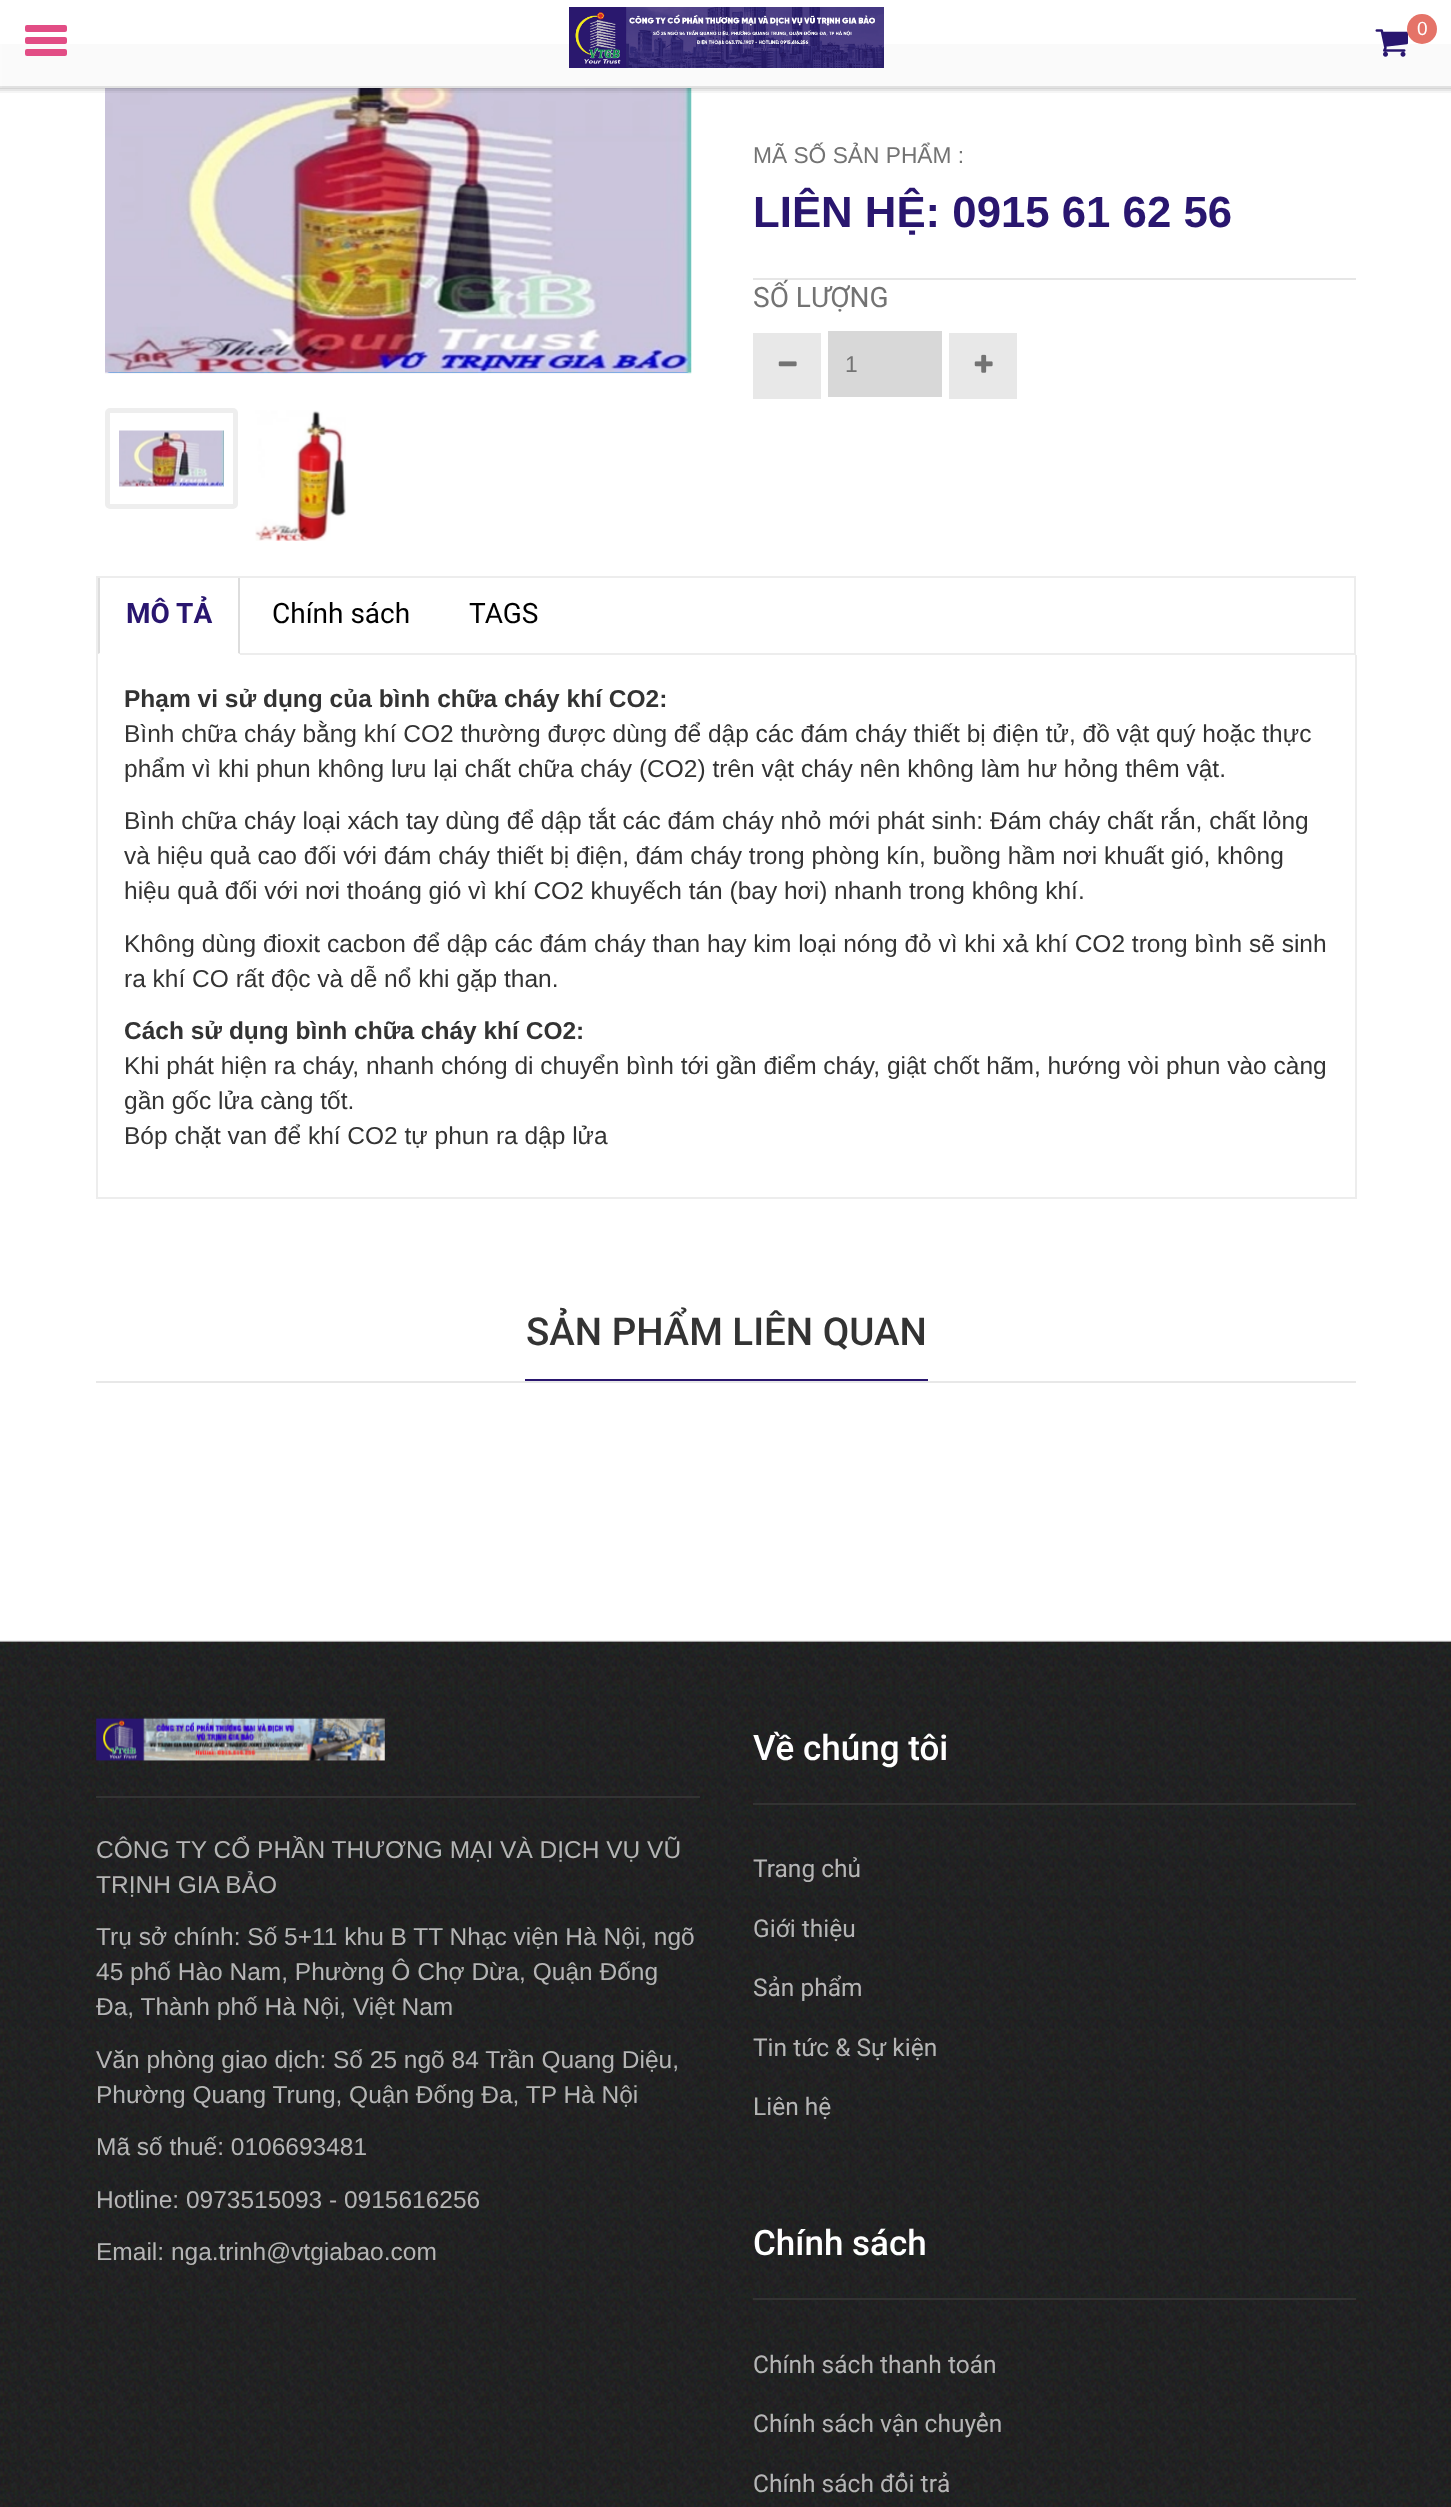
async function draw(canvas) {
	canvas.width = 1451;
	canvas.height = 2507;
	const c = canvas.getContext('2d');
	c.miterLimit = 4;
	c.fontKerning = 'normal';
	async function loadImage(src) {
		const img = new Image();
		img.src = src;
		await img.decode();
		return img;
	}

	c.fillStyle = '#fff';
	c.fillRect(0, 0, 1451, 2507);
	c.fillStyle = '#0c83e7';
	c.beginPath();
	c.roundRect(105, 61, 586, 312, 5);
	c.fill();
	c.drawImage(await loadImage('img3.png'), 105, 88, 587, 286);
	c.fillStyle = '#00000014';
	c.beginPath();
	c.moveTo(0, 88);
	c.lineTo(0, 89);
	c.lineTo(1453, 89);
	c.lineTo(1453, 2);
	c.lineTo(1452, 2);
	c.lineTo(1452, 88);
	c.closePath();
	c.fill();
	c.fillStyle = '#0000000f';
	c.beginPath();
	c.moveTo(0, 88);
	c.lineTo(0, 91);
	c.lineTo(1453, 91);
	c.lineTo(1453, 4);
	c.lineTo(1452, 4);
	c.lineTo(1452, 88);
	c.closePath();
	c.fill();
	c.fillStyle = '#0000000a';
	c.beginPath();
	c.moveTo(0, 88);
	c.lineTo(0, 93);
	c.lineTo(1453, 93);
	c.lineTo(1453, 5);
	c.lineTo(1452, 5);
	c.lineTo(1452, 88);
	c.closePath();
	c.fill();
	for (const [x, y, w, h, color] of [
		[2, 44, 1449, 42, '#fafafa'],
		[0, 44, 2, 44, '#fbfbfb'],
		[0, 86, 1451, 2, '#e1e1e1'],
		[0, 86, 2, 2, '#e4e4e4'],
	]) {
		c.fillStyle = color;
		c.fillRect(x, y, w, h);
	}
	c.fillStyle = '#e24d85';
	c.beginPath();
	c.roundRect(25, 25, 42, 7, 2);
	c.fill();
	c.beginPath();
	c.roundRect(25, 37, 42, 7, 2);
	c.fill();
	c.beginPath();
	c.roundRect(25, 49, 42, 7, 2);
	c.fill();
	c.drawImage(await loadImage('img1.png'), 569, 7, 315, 61);
	c.drawImage(await loadImage('img2.png'), 1375, 29, 33, 28);
	c.fillStyle = '#e57368';
	c.beginPath();
	c.arc(1422, 29, 15, 0, 2 * Math.PI);
	c.fill();
	c.font = '19px Liberation Sans';
	c.fillStyle = '#fff';
	c.fillText('0', 1417, 35);
	c.beginPath();
	c.roundRect(107.5, 410.5, 128, 96, 2.5);
	c.strokeStyle = '#eee';
	c.lineWidth = 5;
	c.stroke();
	c.drawImage(await loadImage('img4.png'), 119, 430, 105, 57);
	c.drawImage(await loadImage('img5.png'), 255, 410, 91, 131);
	c.font = '22.75px Liberation Sans';
	c.fillStyle = '#737373';
	c.fillText('MÃ SỐ SẢN PHẨM :', 753, 163);
	c.font = 'bold 43.75px Liberation Sans';
	c.fillStyle = '#29166f';
	c.fillText('LIÊN HỆ: 0915 61 62 56', 753, 227);
	c.fillStyle = '#e6e6e6';
	c.fillRect(753, 278, 603, 2);
	c.font = '28px Roboto';
	c.fillStyle = '#737373';
	c.fillText('SỐ LƯỢNG', 753, 307);
	c.fillStyle = '#e8e8e8';
	c.fillRect(753, 333, 68, 66);
	c.drawImage(await loadImage('img6.png'), 778, 361, 19, 6);
	c.fillStyle = '#d8d8d8';
	c.fillRect(828, 331, 114, 66);
	c.font = '22.75px Liberation Sans';
	c.fillStyle = '#737373';
	c.fillText('1', 845, 372);
	c.fillStyle = '#e8e8e8';
	c.fillRect(949, 333, 68, 66);
	c.drawImage(await loadImage('img7.png'), 974, 354, 19, 19);
	c.strokeStyle = '#ededed';
	c.lineWidth = 2;
	c.strokeRect(97, 577, 1258, 77);
	c.fillStyle = '#fff';
	c.fillRect(98, 653, 142, 2);
	c.fillStyle = '#ddd';
	c.beginPath();
	c.moveTo(240, 578);
	c.lineTo(240, 654);
	c.lineTo(238, 653);
	c.lineTo(238, 578);
	c.closePath();
	c.fill();
	c.beginPath();
	c.moveTo(98, 654);
	c.lineTo(98, 578);
	c.lineTo(100, 578);
	c.lineTo(100, 653);
	c.closePath();
	c.fill();
	c.font = 'bold 28px Roboto';
	c.fillStyle = '#29166f';
	c.fillText('MÔ TẢ', 126, 623);
	c.font = '28px Roboto';
	c.fillStyle = '#000';
	c.fillText('Chính sách', 272, 623);
	c.fillText('TAGS', 469, 623);
	for (const [x, y, w, h, color] of [
		[1355, 655, 2, 544, '#ededed'],
		[96, 1197, 1260, 2, '#ededed'],
		[96, 655, 2, 544, '#ededed'],
	]) {
		c.fillStyle = color;
		c.fillRect(x, y, w, h);
	}
	c.font = 'bold 24.5px Liberation Sans';
	c.fillStyle = '#333';
	c.fillText('Phạm vi sử dụng của bình chữa cháy khí CO2:', 124, 707);
	c.font = '24.5px Liberation Sans';
	for (const [text, x, y] of [
		['Bình chữa cháy bằng khí CO2 thường được dùng để dập các đám cháy thiết bị điện tử, đồ vật quý hoặc thực', 124, 742],
		['phẩm vì khi phun không lưu lại chất chữa cháy (CO2) trên vật cháy nên không làm hư hỏng thêm vật.', 124, 777],
		['Bình chữa cháy loại xách tay dùng để dập tắt các đám cháy nhỏ mới phát sinh: Đám cháy chất rắn, chất lỏng', 124, 829],
		['và hiệu quả cao đối với đám cháy thiết bị điện, đám cháy trong phòng kín, buồng hầm nơi khuất gió, không', 124, 864],
		['hiệu quả đối với nơi thoáng gió vì khí CO2 khuyếch tán (bay hơi) nhanh trong không khí.', 124, 899],
		['Không dùng đioxit cacbon để dập các đám cháy than hay kim loại nóng đỏ vì khi xả khí CO2 trong bình sẽ sinh', 124, 952],
		['ra khí CO rất độc và dễ nổ khi gặp than.', 124, 987],
	]) {
		c.fillText(text, x, y);
	}
	c.font = 'bold 24.5px Liberation Sans';
	c.fillText('Cách sử dụng bình chữa cháy khí CO2:', 124, 1039);
	c.font = '24.5px Liberation Sans';
	for (const [text, x, y] of [
		['Khi phát hiện ra cháy, nhanh chóng di chuyển bình tới gần điểm cháy, giật chốt hãm, hướng vòi phun vào càng', 124, 1074],
		['gần gốc lửa càng tốt.', 124, 1109],
		['Bóp chặt van để khí CO2 tự phun ra dập lửa', 124, 1144],
	]) {
		c.fillText(text, x, y);
	}
	c.fillStyle = '#e8e8e8';
	c.fillRect(96, 1381, 1260, 2);
	c.font = '500 38.5px Roboto';
	c.fillStyle = '#333';
	c.fillText('SẢN PHẨM LIÊN QUAN', 526, 1345);
	c.fillStyle = '#29166f';
	c.fillRect(525, 1379, 403, 2);
	c.drawImage(await loadImage('img8.png'), 0, 1640, 1451, 867);
	c.fillStyle = '#333';
	c.fillRect(96, 1796, 604, 2);
	c.drawImage(await loadImage('img9.png'), 96, 1717, 289, 44);
	c.font = '24.5px Liberation Sans';
	c.fillStyle = '#b5b5b5';
	for (const [text, x, y] of [
		['CÔNG TY CỔ PHẦN THƯƠNG MẠI VÀ DỊCH VỤ VŨ', 96, 1858],
		['TRỊNH GIA BẢO', 96, 1893],
		['Trụ sở chính: Số 5+11 khu B TT Nhạc viện Hà Nội, ngõ', 96, 1945],
		['45 phố Hào Nam, Phường Ô Chợ Dừa, Quận Đống', 96, 1980],
		['Đa, Thành phố Hà Nội, Việt Nam', 96, 2015],
		['Văn phòng giao dịch: Số 25 ngõ 84 Trần Quang Diệu,', 96, 2068],
		['Phường Quang Trung, Quận Đống Đa, TP Hà Nội', 96, 2103],
		['Mã số thuế: 0106693481', 96, 2155],
		['Hotline: 0973515093 - 0915616256', 96, 2208],
		['Email: nga.trinh@vtgiabao.com', 96, 2260],
	]) {
		c.fillText(text, x, y);
	}
	c.fillStyle = '#333';
	c.fillRect(753, 1803, 603, 2);
	c.font = '500 35px Roboto';
	c.fillStyle = '#fff';
	c.fillText('Về chúng tôi', 753, 1760);
	c.font = '24.5px Roboto';
	c.fillStyle = '#b5b5b5';
	for (const [text, x, y] of [
		['Trang chủ', 753, 1877],
		['Giới thiệu', 753, 1937],
		['Sản phẩm', 753, 1996],
		['Tin tức & Sự kiện', 753, 2056],
		['Liên hệ', 753, 2115],
	]) {
		c.fillText(text, x, y);
	}
	c.fillStyle = '#333';
	c.fillRect(753, 2298, 603, 2);
	c.font = '500 35px Roboto';
	c.fillStyle = '#fff';
	c.fillText('Chính sách', 753, 2255);
	c.font = '24.5px Roboto';
	c.fillStyle = '#b5b5b5';
	for (const [text, x, y] of [
		['Chính sách thanh toán', 753, 2373],
		['Chính sách vận chuyển', 753, 2432],
		['Chính sách đổi trả', 753, 2492],
	]) {
		c.fillText(text, x, y);
	}
}

draw(document.querySelector('canvas'));
